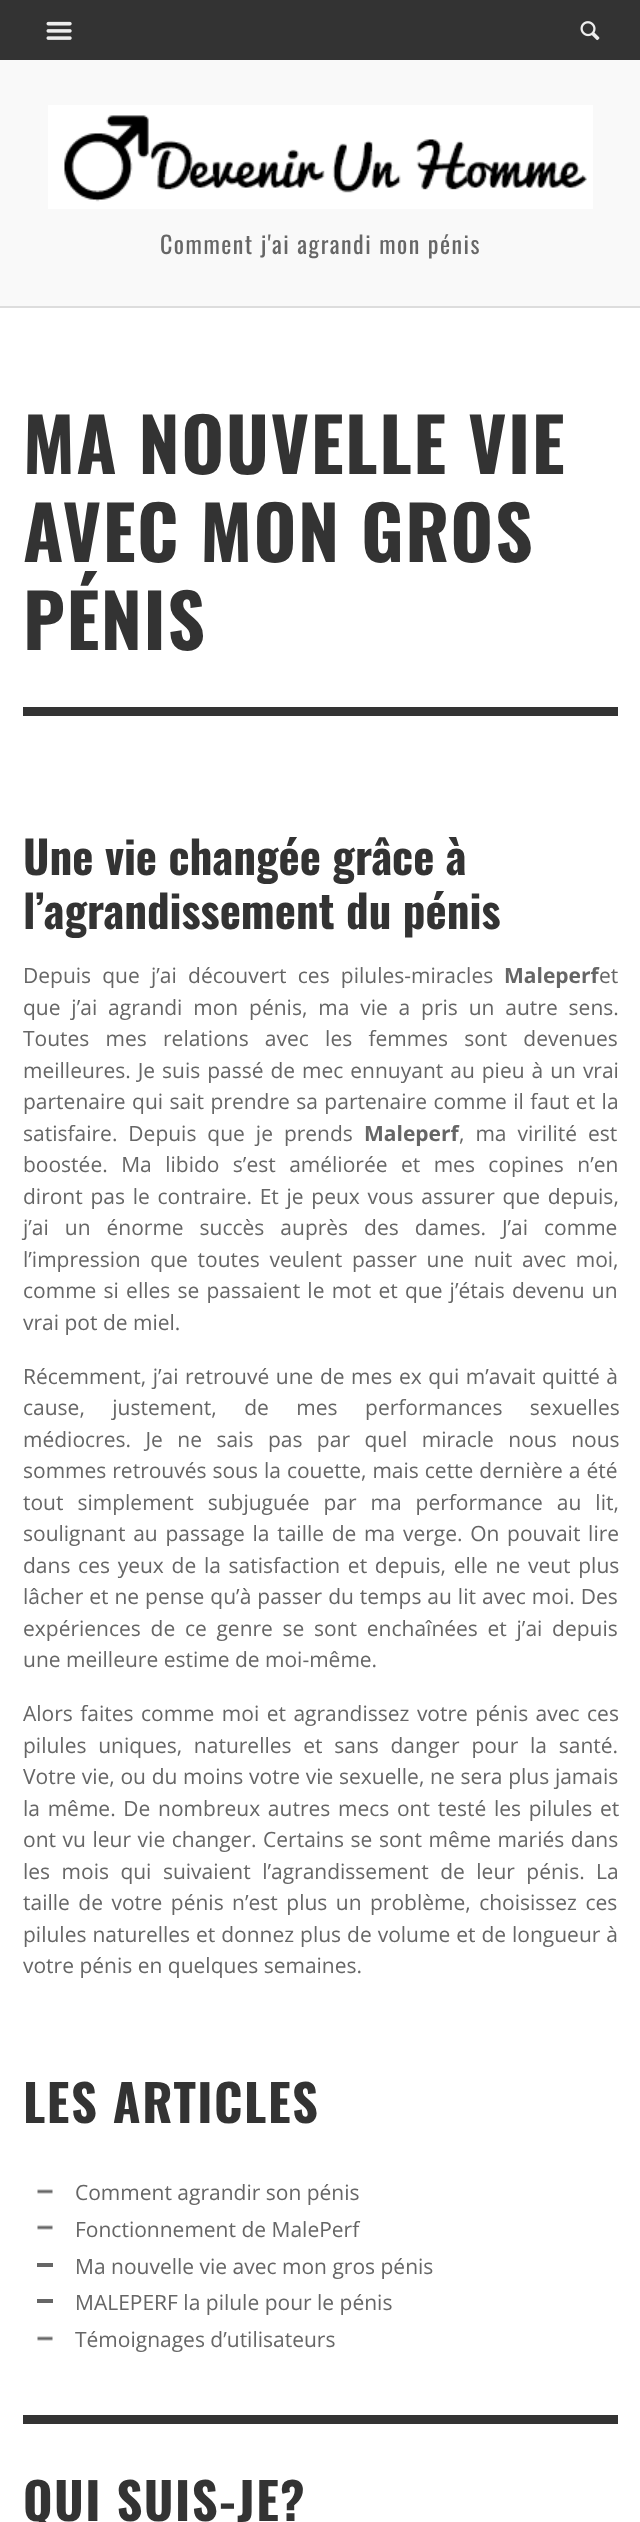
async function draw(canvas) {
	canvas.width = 640;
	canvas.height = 2522;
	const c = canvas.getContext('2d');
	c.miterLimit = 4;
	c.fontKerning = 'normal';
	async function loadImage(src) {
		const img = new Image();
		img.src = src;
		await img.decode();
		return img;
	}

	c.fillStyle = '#fff';
	c.fillRect(0, 0, 640, 2522);
	c.fillStyle = '#333';
	c.fillRect(0, 0, 640, 60);
	c.drawImage(await loadImage('img1.png'), 46, 21, 26, 19);
	c.drawImage(await loadImage('img2.png'), 580, 21, 20, 20);
	c.fillStyle = '#f9f9f9';
	c.fillRect(0, 60, 640, 246);
	c.fillStyle = '#ddd';
	c.fillRect(0, 306, 640, 2);
	c.drawImage(await loadImage('img3.png'), 48, 105, 545, 104);
	c.letterSpacing = '1.5px';
	c.font = '24px Oswald';
	c.fillStyle = '#666';
	c.fillText('Comment j\'ai agrandi mon pénis', 160, 254);
	c.font = 'bold 73.5px Oswald';
	c.fillStyle = '#333';
	for (const [text, x, y] of [
		['MA NOUVELLE VIE', 23, 474],
		['AVEC MON GROS', 23, 562],
		['PÉNIS', 23, 650],
	]) {
		c.fillText(text, x, y);
	}
	c.fillRect(23, 707, 595, 9);
	c.letterSpacing = '0px';
	c.font = 'bold 45px Oswald';
	c.fillText('Une vie changée grâce à', 23, 875);
	c.fillText('l’agrandissement du pénis', 23, 929);
	c.wordSpacing = '5.75px';
	c.font = '21px Open Sans';
	c.fillStyle = '#666';
	c.fillText('Depuis que j’ai découvert ces pilules-miracles', 23, 983);
	c.wordSpacing = '0px';
	c.font = 'bold 21px Open Sans';
	c.fillText('Maleperf', 504, 983);
	c.font = '21px Open Sans';
	c.fillText('et', 599, 983);
	c.wordSpacing = '5.4px';
	c.fillText('que j’ai agrandi mon pénis, ma vie a pris un autre sens.', 23, 1015);
	c.wordSpacing = '10.75px';
	c.fillText('Toutes mes relations avec les femmes sont devenues', 23, 1046);
	c.wordSpacing = '1.5px';
	c.fillText('meilleures. Je suis passé de mec ennuyant au pieu à un vrai', 23, 1078);
	c.wordSpacing = '1px';
	c.fillText('partenaire qui sait prendre sa partenaire comme il faut et la', 23, 1109);
	c.wordSpacing = '5.5px';
	c.fillText('satisfaire. Depuis que je prends', 23, 1141);
	c.wordSpacing = '0px';
	c.font = 'bold 21px Open Sans';
	c.fillText('Maleperf', 364, 1141);
	c.wordSpacing = '5.5px';
	c.font = '21px Open Sans';
	c.fillText(', ma virilité est', 459, 1141);
	c.wordSpacing = '8px';
	c.fillText('boostée. Ma libido s’est améliorée et mes copines n’en', 23, 1172);
	c.wordSpacing = '2.25px';
	c.fillText('diront pas le contraire. Et je peux vous assurer que depuis,', 23, 1204);
	c.wordSpacing = '10.5px';
	c.fillText('j’ai un énorme succès auprès des dames. J’ai comme', 23, 1235);
	c.wordSpacing = '4.25px';
	c.fillText('l’impression que toutes veulent passer une nuit avec moi,', 23, 1267);
	c.wordSpacing = '1.75px';
	c.fillText('comme si elles se passaient le mot et que j’étais devenu un', 23, 1298);
	c.wordSpacing = '0px';
	c.fillText('vrai pot de miel.', 23, 1330);
	c.wordSpacing = '1.1px';
	c.fillText('Récemment, j’ai retrouvé une de mes ex qui m’avait quitté à', 23, 1384);
	c.wordSpacing = '22px';
	c.fillText('cause, justement, de mes performances sexuelles', 23, 1415);
	c.wordSpacing = '9px';
	c.fillText('médiocres. Je ne sais pas par quel miracle nous nous', 23, 1447);
	c.wordSpacing = '0.5px';
	c.fillText('sommes retrouvés sous la couette, mais cette dernière a été', 23, 1478);
	c.wordSpacing = '8.5px';
	c.fillText('tout simplement subjuguée par ma performance au lit,', 23, 1510);
	c.wordSpacing = '2.25px';
	c.fillText('soulignant au passage la taille de ma verge. On pouvait lire', 23, 1541);
	c.fillText('dans ces yeux de la satisfaction et depuis, elle ne veut plus', 23, 1573);
	c.wordSpacing = '0.5px';
	c.fillText('lâcher et ne pense qu’à passer du temps au lit avec moi. Des', 23, 1604);
	c.wordSpacing = '4.25px';
	c.fillText('expériences de ce genre se sont enchaînées et j’ai depuis', 23, 1636);
	c.wordSpacing = '0px';
	c.fillText('une meilleure estime de moi-même.', 23, 1667);
	c.wordSpacing = '2px';
	c.fillText('Alors faites comme moi et agrandissez votre pénis avec ces', 23, 1721);
	c.wordSpacing = '6.25px';
	c.fillText('pilules uniques, naturelles et sans danger pour la santé.', 23, 1753);
	c.wordSpacing = '0.25px';
	c.fillText('Votre vie, ou du moins votre vie sexuelle, ne sera plus jamais', 23, 1784);
	c.wordSpacing = '2.25px';
	c.fillText('la même. De nombreux autres mecs ont testé les pilules et', 23, 1816);
	c.wordSpacing = '1.1px';
	c.fillText('ont vu leur vie changer. Certains se sont même mariés dans', 23, 1847);
	c.wordSpacing = '6px';
	c.fillText('les mois qui suivaient l’agrandissement de leur pénis. La', 23, 1879);
	c.wordSpacing = '3px';
	c.fillText('taille de votre pénis n’est plus un problème, choisissez ces', 23, 1910);
	c.wordSpacing = '0.5px';
	c.fillText('pilules naturelles et donnez plus de volume et de longueur à', 23, 1942);
	c.wordSpacing = '0px';
	c.fillText('votre pénis en quelques semaines.', 23, 1973);
	c.letterSpacing = '1.5px';
	c.font = 'bold 50.5px Oswald';
	c.fillStyle = '#333';
	c.fillText('LES ARTICLES', 23, 2123);
	c.drawImage(await loadImage('img4.png'), 37, 2189, 16, 5);
	c.letterSpacing = '0px';
	c.font = '21px Open Sans';
	c.fillStyle = '#666';
	c.fillText('Comment agrandir son pénis', 75, 2200);
	c.drawImage(await loadImage('img4.png'), 37, 2225, 16, 5);
	c.fillText('Fonctionnement de MalePerf', 75, 2237);
	c.fillRect(37, 2263, 16, 4);
	c.fillText('Ma nouvelle vie avec mon gros pénis', 75, 2274);
	c.fillRect(37, 2299, 16, 4);
	c.fillText('MALEPERF la pilule pour le pénis', 75, 2310);
	c.drawImage(await loadImage('img4.png'), 37, 2336, 16, 5);
	c.fillText('Témoignages d’utilisateurs', 75, 2347);
	c.fillStyle = '#333';
	c.fillRect(23, 2415, 595, 9);
	c.letterSpacing = '1.5px';
	c.font = 'bold 50.5px Oswald';
	c.fillText('QUI SUIS-JE?', 23, 2521);
}

draw(document.querySelector('canvas'));
